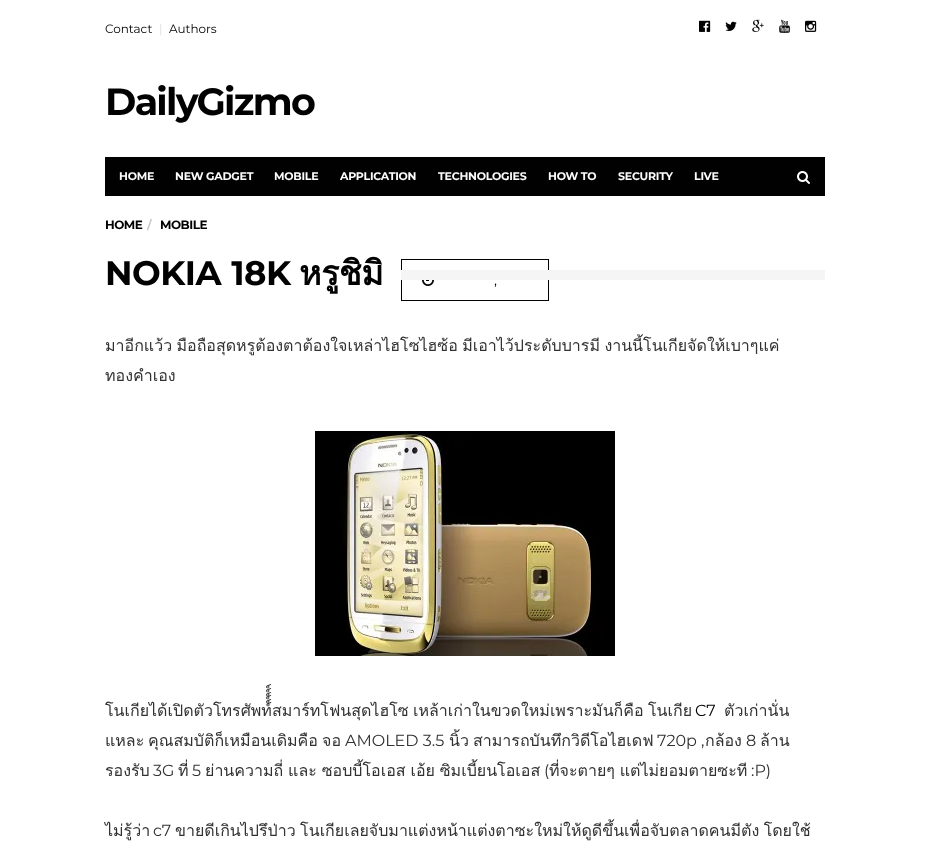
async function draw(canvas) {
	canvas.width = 929;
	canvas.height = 843;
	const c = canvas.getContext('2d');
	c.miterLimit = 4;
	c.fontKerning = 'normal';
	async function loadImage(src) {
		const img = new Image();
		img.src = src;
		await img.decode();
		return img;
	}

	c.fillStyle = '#fff';
	c.fillRect(0, 0, 929, 843);
	c.font = '12px Montserrat';
	c.fillStyle = '#010101';
	c.fillText('Contact', 105, 33);
	c.fillStyle = '#ddd';
	c.fillText('|', 159, 33);
	c.fillStyle = '#010101';
	c.fillText('Authors', 169, 33);
	c.drawImage(await loadImage('img1.png'), 699, 20, 12, 12);
	c.drawImage(await loadImage('img2.png'), 725, 21, 12, 10);
	c.drawImage(await loadImage('img3.png'), 752, 19, 12, 13);
	c.drawImage(await loadImage('img4.png'), 779, 19, 11, 14);
	c.drawImage(await loadImage('img5.png'), 805, 20, 12, 12);
	c.letterSpacing = '-1.75px';
	c.font = 'bold 38px Montserrat';
	c.fillText('DailyGizmo', 105, 115);
	c.fillRect(105, 157, 720, 39);
	c.letterSpacing = '-0.25px';
	c.font = 'bold 11px Montserrat';
	c.fillStyle = '#fcfcfc';
	for (const [text, x, y] of [
		['HOME', 119, 180],
		['NEW GADGET', 175, 180],
		['MOBILE', 274, 180],
		['APPLICATION', 340, 180],
		['TECHNOLOGIES', 438, 180],
		['HOW TO', 548, 180],
		['SECURITY', 618, 180],
		['LIVE', 694, 180],
	]) {
		c.fillText(text, x, y);
	}
	c.drawImage(await loadImage('img6.png'), 797, 171, 13, 13);
	c.letterSpacing = '-0.5px';
	c.font = 'bold 12px Montserrat';
	c.fillStyle = '#010101';
	c.fillText('HOME', 105, 229);
	c.fillStyle = '#ccc';
	c.fillText('/', 147, 229);
	c.fillStyle = '#010101';
	c.fillText('MOBILE', 160, 229);
	c.wordSpacing = '1px';
	c.font = 'bold 34px Montserrat';
	c.fillText('NOKIA 18K', 105, 285);
	c.wordSpacing = '0px';
	c.font = 'bold 34px Loma';
	c.fillText('หรูชิมิ', 299, 285);
	c.strokeStyle = '#010101';
	c.strokeRect(401.5, 259.5, 147, 41);
	c.fillStyle = '#f5f5f5';
	c.fillRect(401, 270, 424, 10);
	c.drawImage(await loadImage('img7.png'), 422, 280, 12, 6);
	c.letterSpacing = '0px';
	c.font = '14px Montserrat';
	c.fillStyle = '#010101';
	c.fillText(',', 494, 285);
	c.wordSpacing = '-1px';
	c.font = '16px Loma';
	c.fillStyle = '#313131';
	c.fillText('มาอีกแว้ว มือถือสุดหรูต้องตาต้องใจเหล่าไฮโซไฮซ้อ มีเอาไว้ประดับบารมี งานนี้โนเกียจัดให้เบาๆแค่', 105, 351);
	c.wordSpacing = '0px';
	c.fillText('ทองคำเอง', 105, 381);
	c.drawImage(await loadImage('img8.png'), 315, 431, 300, 225);
	c.wordSpacing = '-1px';
	c.fillText('โนเกียได้เปิดตัวโทรศัพท์์์์์์สมาร์ทโฟนสุดไฮโซ เหล้าเก่าในขวดใหม่เพราะมันก็คือ โนเกีย', 105, 716);
	c.wordSpacing = '0px';
	c.font = '16px Montserrat';
	c.fillStyle = '#010101';
	c.fillText('C7', 695, 716);
	c.font = '16px Loma';
	c.fillStyle = '#313131';
	for (const [text, x, y] of [
		['ตัวเก่านั่น', 724, 716],
		['แหละ', 105, 746],
		['คุณสมบัติก็เหมือนเดิมคือ', 148, 746],
		['จอ', 322, 746],
	]) {
		c.fillText(text, x, y);
	}
	c.font = '16px Montserrat';
	c.fillText('AMOLED 3.5', 345, 746);
	c.font = '16px Loma';
	c.fillText('นิ้ว', 449, 746);
	c.fillText('สามารถบันทึกวิดีโอไฮเดฟ', 473, 746);
	c.font = '16px Montserrat';
	c.fillText('720p ,', 657, 746);
	c.font = '16px Loma';
	c.fillText('กล้อง', 705, 746);
	c.font = '16px Montserrat';
	c.fillText('8', 746, 746);
	c.font = '16px Loma';
	c.fillText('ล้าน', 760, 746);
	c.fillText('รองรับ', 105, 776);
	c.font = '16px Montserrat';
	c.fillText('3G', 153, 776);
	c.font = '16px Loma';
	c.fillText('ที่', 178, 776);
	c.font = '16px Montserrat';
	c.fillText('5', 192, 776);
	c.wordSpacing = '-0.5px';
	c.font = '16px Loma';
	c.fillText('ย่านความถี่ และ ซอบบี้โอเอส เอ้ย ซิมเบี้ยนโอเอส', 205, 776);
	c.wordSpacing = '0px';
	c.font = '16px Montserrat';
	c.fillText('(', 544, 776);
	c.wordSpacing = '-0.5px';
	c.font = '16px Loma';
	c.fillText('ที่จะตายๆ แต่ไม่ยอมตายซะที', 549, 776);
	c.wordSpacing = '0px';
	c.font = '16px Montserrat';
	c.fillText(':P)', 751, 776);
	c.font = '16px Loma';
	c.fillText('ไม่รู้ว่า', 105, 836);
	c.font = '16px Montserrat';
	c.fillText('c7', 153, 836);
	c.wordSpacing = '-1px';
	c.font = '16px Loma';
	c.fillText('ขายดีเกินไปรึป่าว โนเกียเลยจับมาแต่งหน้าแต่งตาซะใหม่ให้ดูดีขึ้นเพื่อจับตลาดคนมีตัง โดยใช้', 175, 836);
}

draw(document.querySelector('canvas'));
